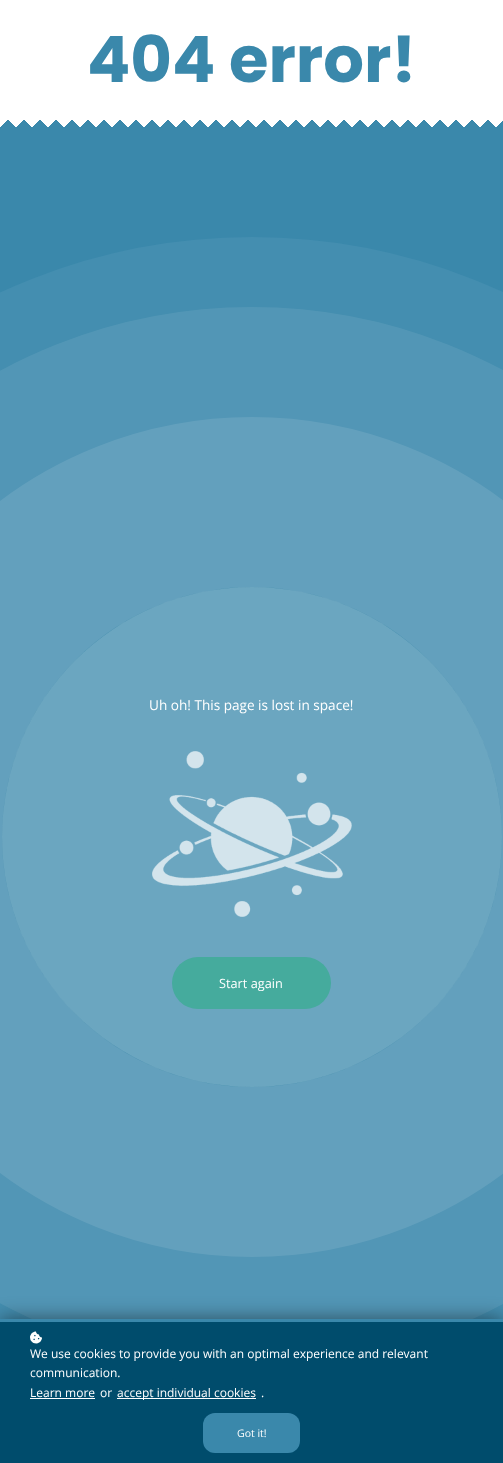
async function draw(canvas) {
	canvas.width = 503;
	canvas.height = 1463;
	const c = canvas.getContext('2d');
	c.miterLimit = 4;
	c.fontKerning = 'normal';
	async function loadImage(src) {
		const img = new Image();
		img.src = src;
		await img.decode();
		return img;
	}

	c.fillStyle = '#3a88ab';
	c.fillRect(0, 0, 503, 1463);
	c.fillStyle = '#fff';
	c.fillRect(0, 0, 503, 120);
	c.font = 'bold 64px Poppins';
	c.fillStyle = '#3a88ab';
	c.fillText('404 error!', 87, 82);
	c.drawImage(await loadImage('img1.png'), 9, 120, 487, 7);
	c.drawImage(await loadImage('img2.png'), 0, 120, 503, 7);
	c.beginPath();
	c.arc(252, 837, 425, 0, 2 * Math.PI);
	c.strokeStyle = '#448eb0';
	c.lineWidth = 350;
	c.stroke();
	c.beginPath();
	c.arc(252, 837, 390, 0, 2 * Math.PI);
	c.strokeStyle = '#ffffff14';
	c.lineWidth = 280;
	c.stroke();
	c.beginPath();
	c.arc(252, 837, 335, 0, 2 * Math.PI);
	c.strokeStyle = '#ffffff1a';
	c.lineWidth = 170;
	c.stroke();
	c.fillStyle = '#ffffff40';
	c.beginPath();
	c.arc(252, 837, 250, 0, 2 * Math.PI);
	c.fill();
	c.drawImage(await loadImage('img3.png'), 152, 751, 200, 166);
	c.font = '13.6px Open Sans';
	c.fillStyle = '#fff';
	c.fillText('Uh oh! This page is lost in space!', 149, 710);
	c.fillStyle = '#45ab9d';
	c.beginPath();
	c.roundRect(172, 957, 159, 52, 26);
	c.fill();
	c.font = '12.75px Open Sans';
	c.fillStyle = '#fff';
	c.fillText('Start again', 219, 988);
	c.fillStyle = '#00000080';
	c.filter = 'blur(10px)';
	c.beginPath();
	c.rect(0, 1319, 503, 144);
	c.fill();
	c.filter = 'none';
	c.fillStyle = '#004c6c';
	c.fillRect(0, 1322, 503, 141);
	c.fillStyle = '#3a88ab';
	c.fillRect(0, 1319, 503, 3);
	c.drawImage(await loadImage('img4.png'), 30, 1331, 12, 13);
	c.font = '12px Open Sans';
	c.fillStyle = '#fff';
	for (const [text, x, y] of [
		['We use cookies to provide you with an optimal experience and relevant', 30, 1358],
		['communication.', 30, 1377],
		['Learn more', 30, 1397],
	]) {
		c.fillText(text, x, y);
	}
	c.fillRect(30, 1398, 65, 1);
	c.fillText('or', 100, 1397);
	c.fillRect(117, 1398, 139, 1);
	c.fillText('accept individual cookies', 117, 1397);
	c.fillText('.', 261, 1397);
	c.fillStyle = '#3a88ab';
	c.beginPath();
	c.roundRect(203, 1413, 97, 40, 12);
	c.fill();
	c.font = '10.5px Open Sans';
	c.fillStyle = '#fff';
	c.fillText('Got it!', 237, 1437);
}

draw(document.querySelector('canvas'));
